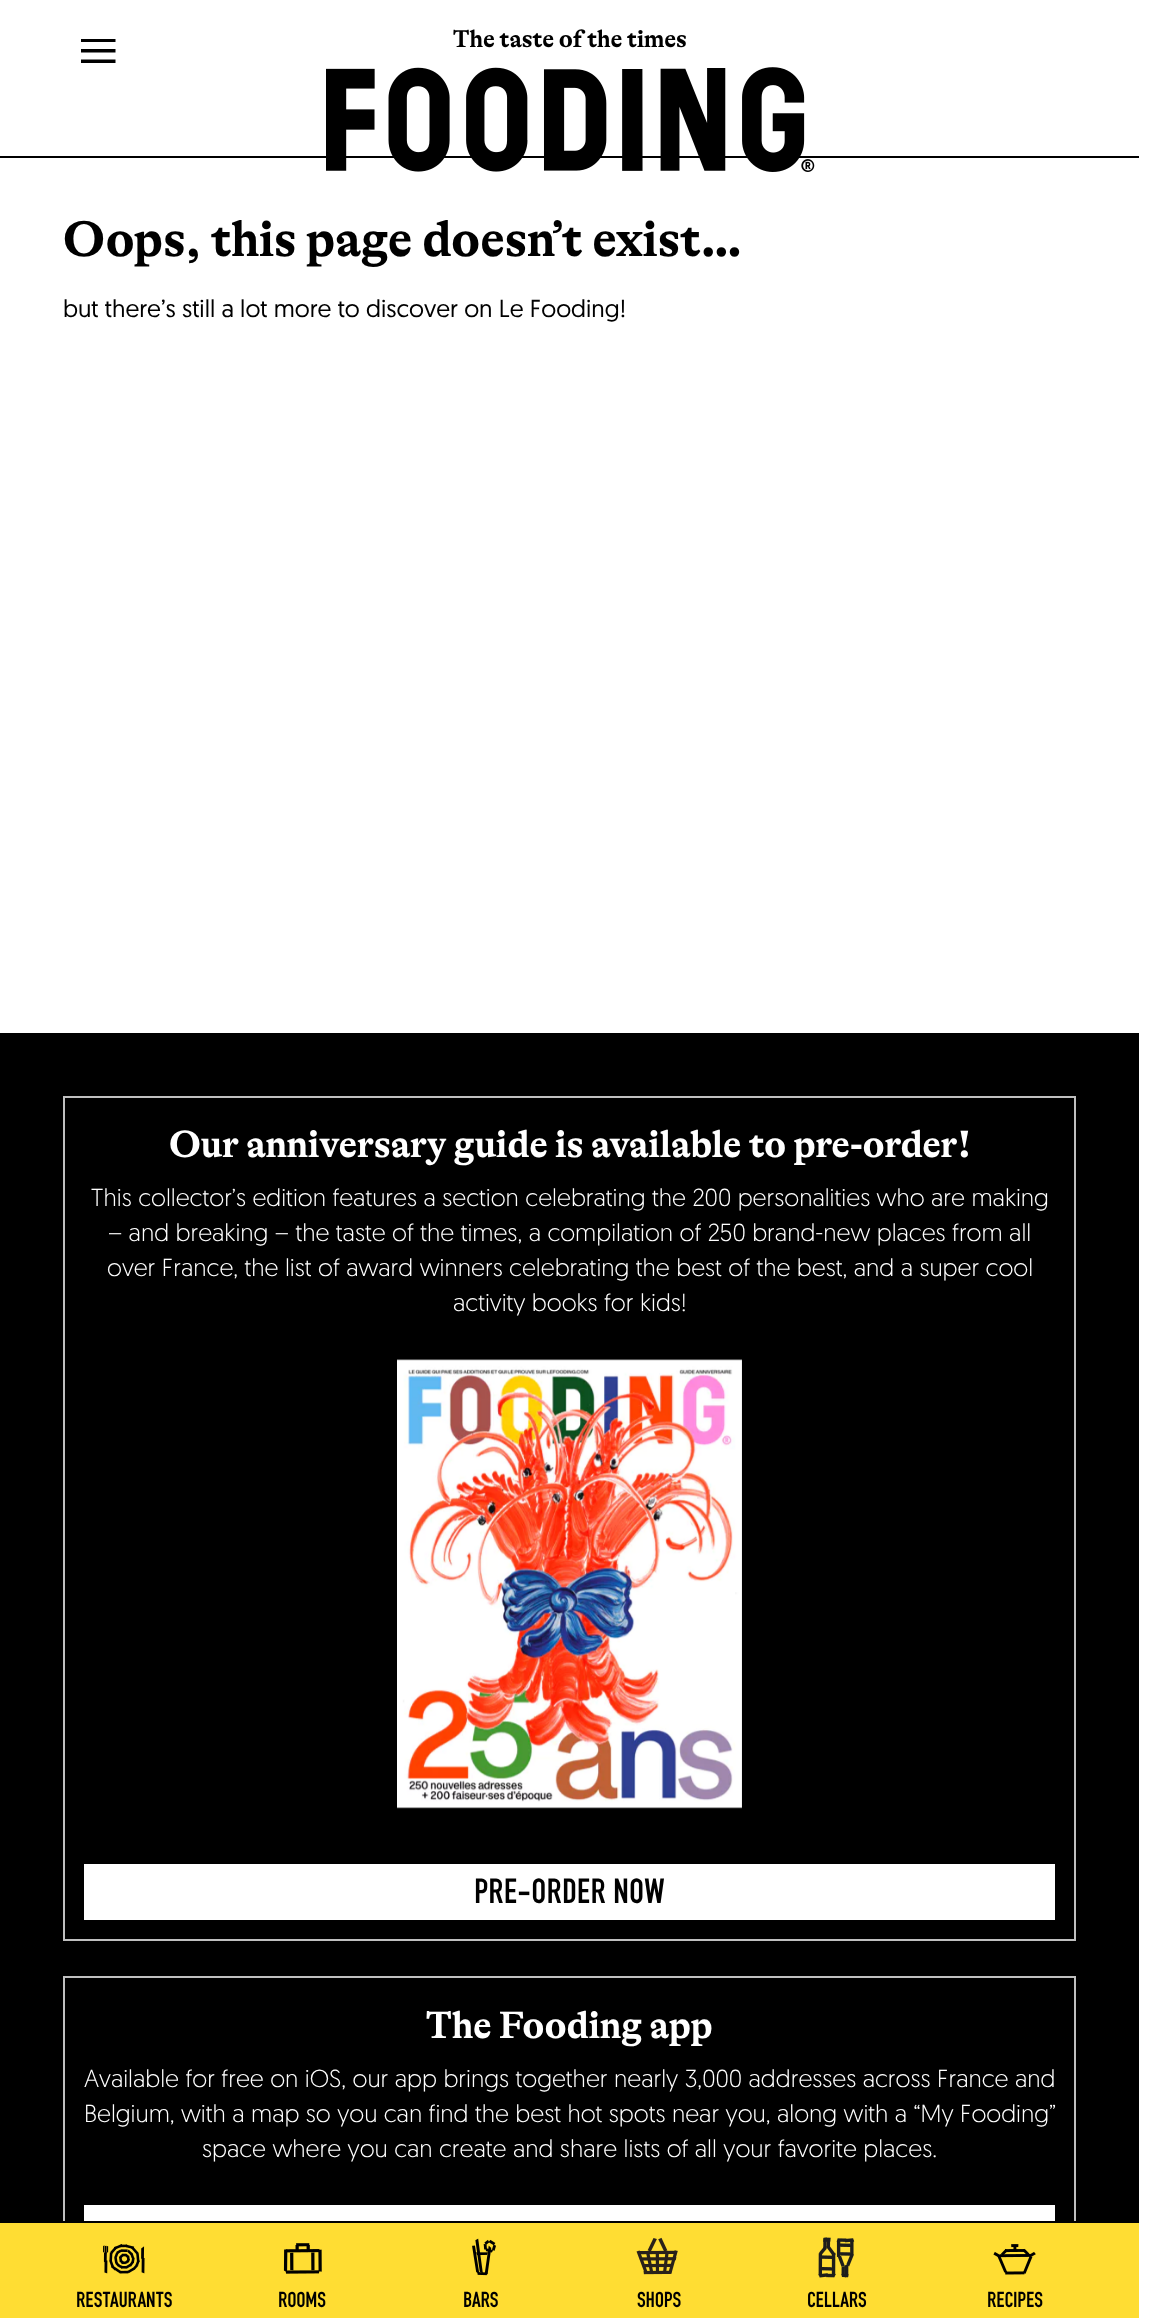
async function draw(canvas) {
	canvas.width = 1165;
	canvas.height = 2318;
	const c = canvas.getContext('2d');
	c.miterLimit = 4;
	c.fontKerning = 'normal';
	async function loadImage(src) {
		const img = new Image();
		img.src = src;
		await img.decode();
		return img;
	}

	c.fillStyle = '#fff';
	c.fillRect(0, 0, 1165, 2318);
	c.save();
	c.beginPath();
	c.rect(81, 39, 35, 24);
	c.clip();
	c.fillStyle = '#000';
	c.beginPath();
	c.moveTo(80.5, 38.5);
	c.lineTo(115.5, 38.5);
	c.lineTo(115.5, 42);
	c.lineTo(80.5, 42);
	c.closePath();
	c.moveTo(80.5, 49);
	c.lineTo(115.5, 49);
	c.lineTo(115.5, 52.5);
	c.lineTo(80.5, 52.5);
	c.closePath();
	c.moveTo(80.5, 59.5);
	c.lineTo(115.5, 59.5);
	c.lineTo(115.5, 63);
	c.lineTo(80.5, 63);
	c.closePath();
	c.fill();
	c.restore();
	c.font = 'bold 24.5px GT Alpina';
	c.fillStyle = '#000';
	c.fillText('The taste of the times', 453, 47);
	c.drawImage(await loadImage('img1.png'), 326, 67, 489, 105);
	c.fillRect(0, 156, 1139, 2);
	c.font = 'bold 50.75px GT Alpina';
	c.fillText('Oops, this page doesn’t exist…', 63, 256);
	c.font = '24.5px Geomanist';
	c.fillText('but there’s still a lot more to discover on Le Fooding!', 63, 317);
	c.fillRect(0, 1033, 1139, 1188);
	c.strokeStyle = '#bfbfbf';
	c.lineWidth = 2;
	c.strokeRect(64, 1097, 1011, 843);
	c.font = 'bold 38.5px GT Alpina';
	c.fillStyle = '#fff';
	c.fillText('Our anniversary guide is available to pre-order!', 169, 1157);
	c.font = '300 24.5px Geomanist';
	for (const [text, x, y] of [
		['This collector’s edition features a section celebrating the 200 personalities who are making', 91, 1206],
		['– and breaking – the taste of the times, a compilation of 250 brand-new places from all', 108, 1241],
		['over France, the list of award winners celebrating the best of the best, and a super cool', 107, 1276],
		['activity books for kids!', 453, 1311],
	]) {
		c.fillText(text, x, y);
	}
	c.drawImage(await loadImage('img2.png'), 397, 1359, 345, 450);
	c.fillRect(84, 1864, 971, 56);
	c.font = '36.75px "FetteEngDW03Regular"';
	c.fillStyle = '#000';
	c.fillText('PRE-ORDER NOW', 474, 1903);
	c.strokeRect(64, 1977, 1011, 304);
	c.font = 'bold 38.5px GT Alpina';
	c.fillStyle = '#fff';
	c.fillText('The Fooding app', 426, 2038);
	c.font = '300 24.5px Geomanist';
	for (const [text, x, y] of [
		['Available for free on iOS, our app brings together nearly 3,000 addresses across France and', 84, 2087],
		['Belgium, with a map so you can find the best hot spots near you, along with a “My Fooding”', 84, 2122],
		['space where you can create and share lists of all your favorite places.', 202, 2157],
	]) {
		c.fillText(text, x, y);
	}
	c.fillRect(84, 2205, 971, 16);
	c.strokeStyle = '#000';
	c.strokeRect(83, 2204, 973, 58);
	c.fillStyle = '#fd3';
	c.fillRect(0, 2223, 1139, 95);
	c.fillStyle = '#000';
	c.fillRect(0, 2221, 1139, 2);
	c.drawImage(await loadImage('img3.png'), 103, 2244, 42, 30);
	c.letterSpacing = '-0.25px';
	c.font = '22.75px "FetteEngDW03Regular"';
	c.fillText('RESTAURANTS', 76, 2307);
	c.drawImage(await loadImage('img4.png'), 283, 2243, 39, 31);
	c.fillText('ROOMS', 278, 2307);
	c.drawImage(await loadImage('img5.png'), 472, 2238, 24, 38);
	c.fillText('BARS', 463, 2307);
	c.drawImage(await loadImage('img6.png'), 636, 2237, 42, 38);
	c.fillText('SHOPS', 637, 2307);
	c.drawImage(await loadImage('img7.png'), 818, 2237, 37, 41);
	c.fillText('CELLARS', 807, 2307);
	c.drawImage(await loadImage('img8.png'), 993, 2244, 43, 31);
	c.fillText('RECIPES', 987, 2307);
}

draw(document.querySelector('canvas'));
